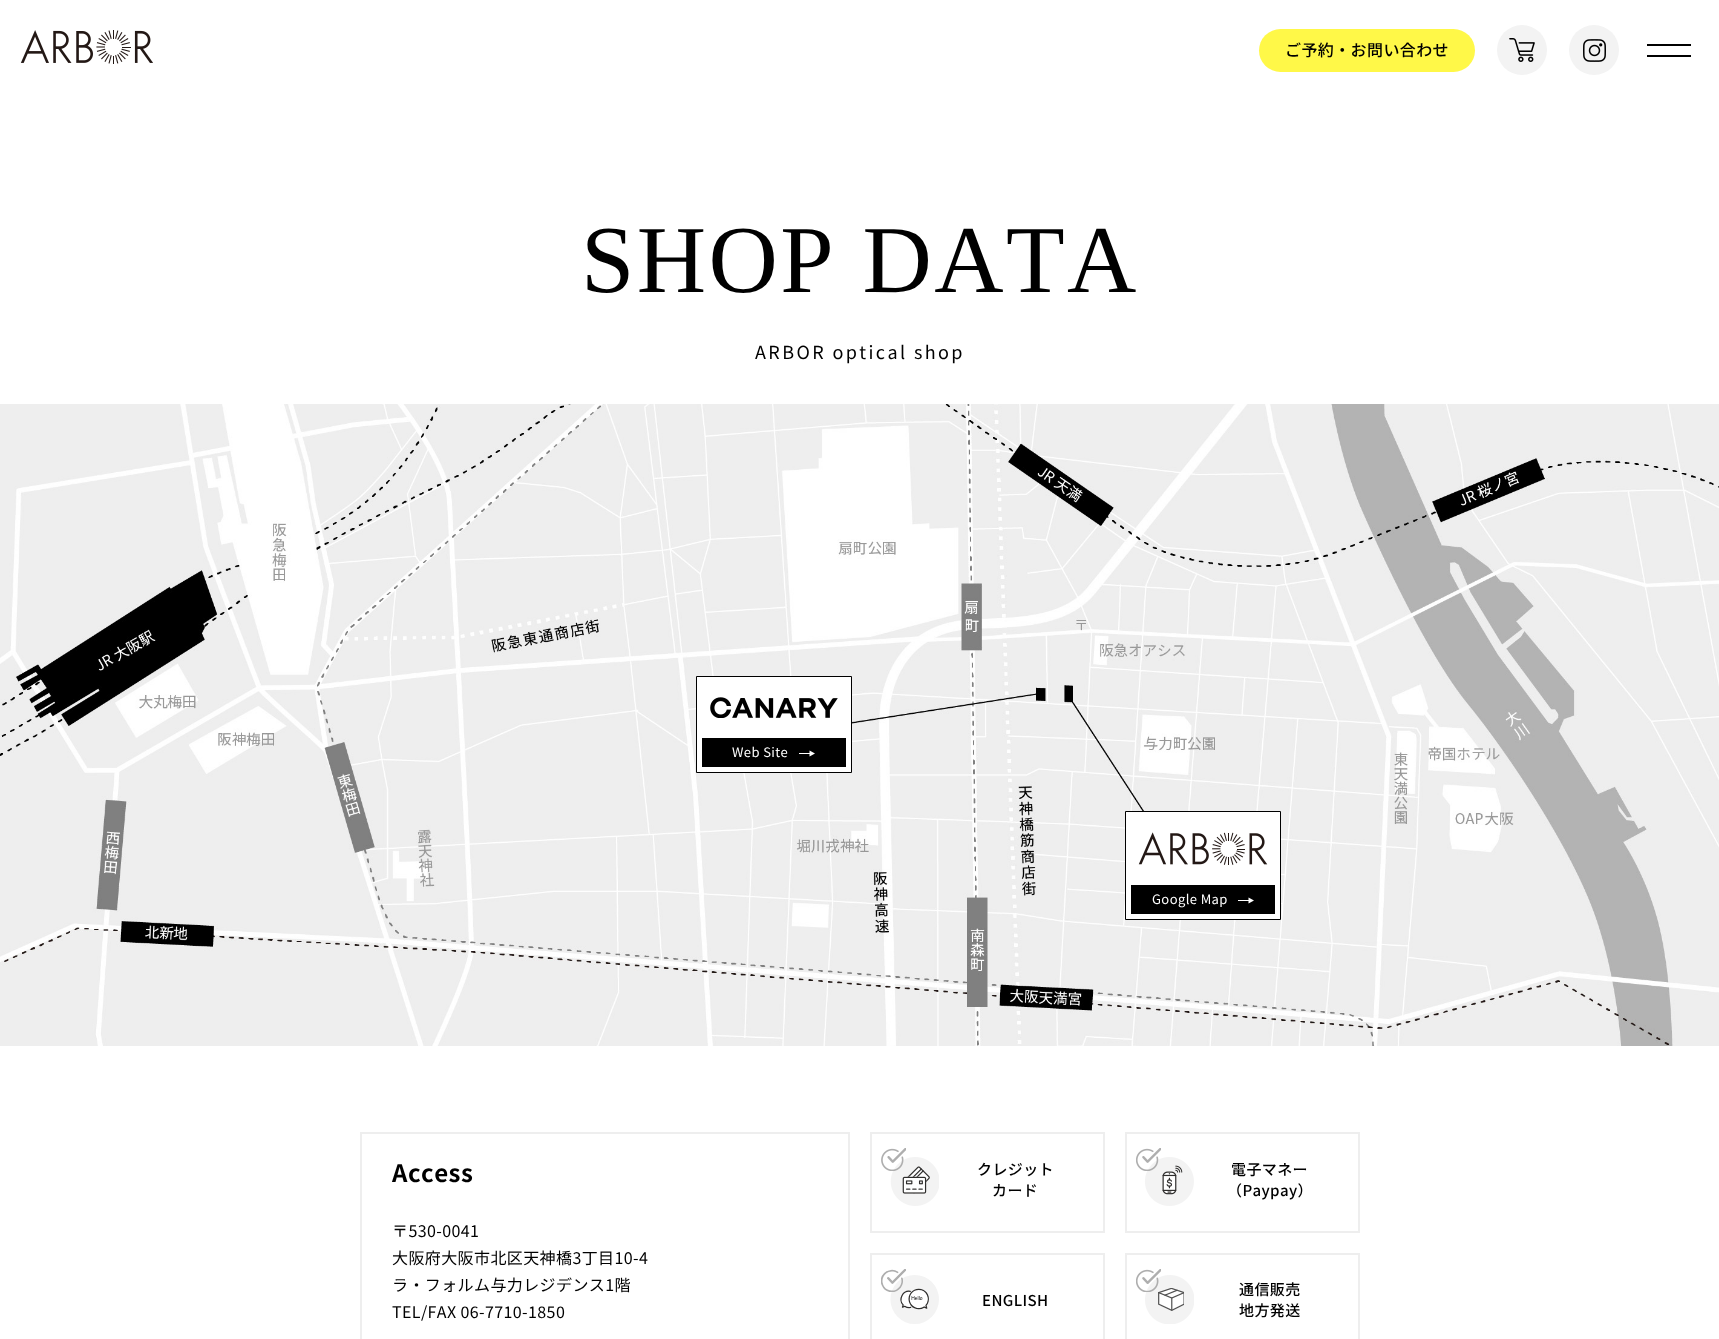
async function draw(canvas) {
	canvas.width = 1719;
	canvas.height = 1339;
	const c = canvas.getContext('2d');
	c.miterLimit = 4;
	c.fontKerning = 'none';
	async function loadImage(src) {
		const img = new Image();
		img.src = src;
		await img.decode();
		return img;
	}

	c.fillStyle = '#fff';
	c.fillRect(0, 0, 1719, 1339);
	c.drawImage(await loadImage('img1.png'), 20, 30, 133, 34);
	c.fillStyle = '#fff848';
	c.beginPath();
	c.roundRect(1259, 29, 216, 43, 21.5);
	c.fill();
	c.letterSpacing = '0.4px';
	c.font = '500 16px Noto Sans JP';
	c.fillStyle = '#000';
	c.fillText('ご予約・お問い合わせ', 1285, 56);
	c.fillStyle = '#f3f3f3';
	c.beginPath();
	c.arc(1522, 50, 25, 0, 2 * Math.PI);
	c.fill();
	c.drawImage(await loadImage('img2.png'), 1509, 38, 26, 24);
	c.beginPath();
	c.arc(1594, 50, 25, 0, 2 * Math.PI);
	c.fill();
	c.drawImage(await loadImage('img3.png'), 1583, 39, 23, 23);
	c.fillStyle = '#000';
	c.fillRect(1647, 44, 44, 2);
	c.fillRect(1647, 55, 44, 2);
	c.letterSpacing = '2.4px';
	c.font = '96px Liberation Serif';
	c.fillText('SHOP DATA', 581, 292);
	c.font = '18px Noto Sans JP';
	c.fillText('ARBOR optical shop', 755, 359);
	c.drawImage(await loadImage('img4.png'), 0, 404, 1719, 642);
	c.fillStyle = '#fff';
	c.beginPath();
	c.rect(696.5, 676.5, 155, 96);
	c.fill();
	c.strokeStyle = '#000';
	c.stroke();
	c.drawImage(await loadImage('img5.png'), 710, 697, 128, 21);
	c.fillStyle = '#000';
	c.fillRect(702, 738, 144, 29);
	c.letterSpacing = '0.4px';
	c.font = '13px Noto Sans JP';
	c.fillStyle = '#fff';
	c.fillText('Web Site', 732, 757);
	c.beginPath();
	c.moveTo(815, 753.5);
	c.lineTo(809.5, 756.5);
	c.lineTo(809.5, 750.5);
	c.closePath();
	c.fill();
	c.fillRect(799, 753, 12, 1);
	c.beginPath();
	c.rect(1125.5, 811.5, 155, 108);
	c.fill();
	c.stroke();
	c.drawImage(await loadImage('img6.png'), 1138, 832, 130, 33);
	c.fillStyle = '#000';
	c.fillRect(1131, 885, 144, 29);
	c.fillStyle = '#fff';
	c.fillText('Google Map', 1152, 904);
	c.beginPath();
	c.moveTo(1254, 900.5);
	c.lineTo(1248.5, 903.5);
	c.lineTo(1248.5, 897.5);
	c.closePath();
	c.fill();
	c.fillRect(1238, 900, 12, 1);
	c.strokeStyle = '#eee';
	c.lineWidth = 2;
	c.strokeRect(361, 1133, 488, 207);
	c.letterSpacing = '0.5px';
	c.font = 'bold 24px Noto Sans JP';
	c.fillStyle = '#000';
	c.fillText('Access', 392, 1182);
	c.letterSpacing = '0.4px';
	c.font = '16px Noto Sans JP';
	for (const [text, x, y] of [
		['〒530-0041', 392, 1237],
		['大阪府大阪市北区天神橋3丁目10-4', 392, 1264],
		['ラ・フォルム与力レジデンス1階', 392, 1291],
		['TEL/FAX 06-7710-1850', 392, 1318],
	]) {
		c.fillText(text, x, y);
	}
	c.strokeRect(871, 1133, 233, 99);
	c.drawImage(await loadImage('img7.png'), 881, 1148, 58, 58);
	c.font = '500 15px Noto Sans JP';
	c.fillText('クレジット', 977, 1175);
	c.fillText('カード', 992, 1196);
	c.strokeRect(1126, 1133, 233, 99);
	c.drawImage(await loadImage('img8.png'), 1136, 1148, 58, 58);
	c.fillText('電子マネー', 1231, 1175);
	c.fillText('（Paypay）', 1227, 1196);
	c.strokeRect(871, 1254, 233, 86);
	c.drawImage(await loadImage('img9.png'), 881, 1269, 58, 55);
	c.fillText('ENGLISH', 982, 1306);
	c.strokeRect(1126, 1254, 233, 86);
	c.drawImage(await loadImage('img10.png'), 1136, 1269, 58, 55);
	c.fillText('通信販売', 1239, 1295);
	c.fillText('地方発送', 1239, 1316);
}

draw(document.querySelector('canvas'));
